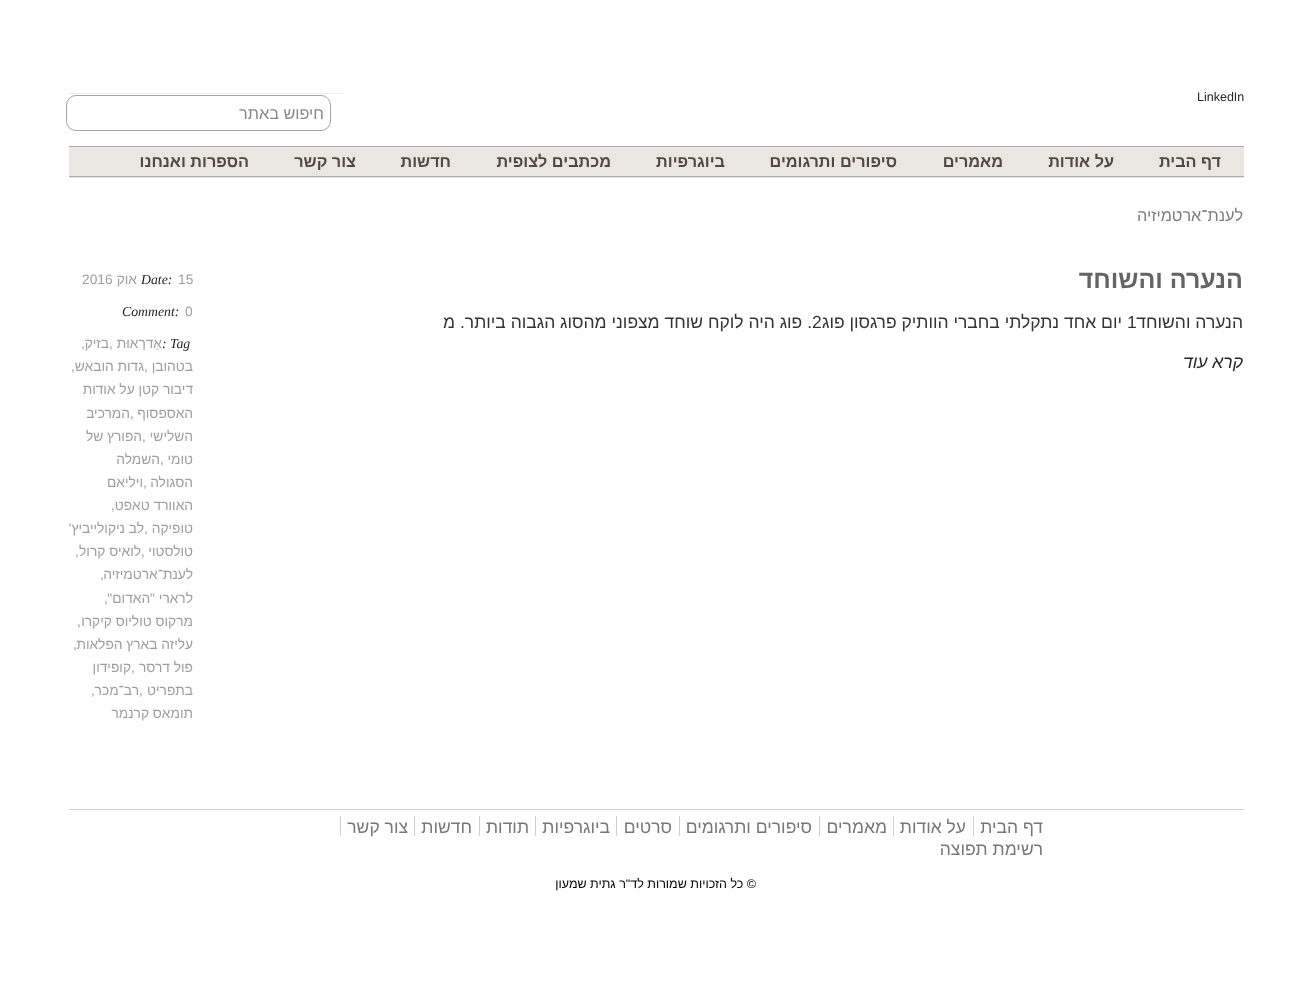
async function draw(canvas) {
	canvas.width = 1311;
	canvas.height = 987;
	const c = canvas.getContext('2d');
	c.miterLimit = 4;
	c.fontKerning = 'normal';

	c.fillStyle = '#fff';
	c.fillRect(0, 0, 1311, 987);
	c.font = '12.5px Liberation Sans';
	c.fillStyle = '#272727';
	c.fillText('LinkedIn', 1197, 101);
	c.fillStyle = '#ececec';
	c.fillRect(69, 93, 275, 1);
	c.beginPath();
	c.roundRect(66.5, 95.5, 264, 35, 9.5);
	c.strokeStyle = '#a4a4a4';
	c.stroke();
	c.direction = 'rtl';
	c.font = '16.25px Liberation Sans';
	c.fillStyle = '#888';
	c.fillText('חיפוש באתר', 324, 119);
	for (const [x, y, w, h, color] of [
		[69, 147, 1175, 31, '#eae7e2'],
		[69, 146, 1175, 1, '#adadad'],
		[69, 176, 1175, 1, '#adadad'],
	]) {
		c.fillStyle = color;
		c.fillRect(x, y, w, h);
	}
	c.font = 'bold 16.25px Liberation Sans';
	c.fillStyle = '#534741';
	for (const [text, x, y] of [
		['דף הבית', 1221, 167],
		['על אודות', 1114, 167],
		['מאמרים', 1003, 167],
		['סיפורים ותרגומים', 897, 167],
		['ביוגרפיות', 725, 167],
		['מכתבים לצופית', 611, 167],
		['חדשות', 451, 167],
		['צור קשר', 356, 167],
		['הספרות ואנחנו', 249, 167],
	]) {
		c.fillText(text, x, y);
	}
	c.font = '16.25px Liberation Sans';
	c.fillStyle = '#7d7d7d';
	c.fillText('לענת־ארטמיזיה', 1243, 221);
	c.font = 'bold 25px Liberation Sans';
	c.fillStyle = '#646464';
	c.fillText('הנערה והשוחד', 1243, 288);
	c.font = '17.5px Liberation Sans';
	c.fillStyle = '#343434';
	c.fillText('הנערה והשוחד', 1243, 328);
	c.direction = 'ltr';
	c.fillText('1', 1127, 328);
	c.direction = 'rtl';
	c.fillText('יום אחד נתקלתי בחברי הוותיק פרגסון פוג', 1122, 328);
	c.direction = 'ltr';
	c.fillText('2', 812, 328);
	c.direction = 'rtl';
	c.fillText('. פוג היה לוקח שוחד מצפוני מהסוג הגבוה ביותר. מ', 812, 328);
	c.font = 'italic 17.5px Liberation Sans';
	c.fillStyle = '#272727';
	c.fillText('קרא עוד', 1243, 368);
	c.direction = 'ltr';
	c.font = '13.75px Liberation Sans';
	c.fillStyle = '#9e9e9e';
	c.fillText('15', 178, 284);
	c.font = 'italic 13.75px Liberation Serif';
	c.fillStyle = '#212121';
	c.fillText('Date:', 141, 284);
	c.direction = 'rtl';
	c.font = '13.75px Liberation Sans';
	c.fillStyle = '#9e9e9e';
	c.fillText('אוק', 137, 284);
	c.direction = 'ltr';
	c.fillText('2016', 82, 284);
	c.fillText('0', 185, 316);
	c.font = 'italic 13.75px Liberation Serif';
	c.fillStyle = '#212121';
	c.fillText('Comment:', 122, 316);
	c.fillText(': Tag', 162, 348);
	c.direction = 'rtl';
	c.font = '13.75px Liberation Sans';
	c.fillStyle = '#9e9e9e';
	c.fillText('אַדרָאוּת', 162, 348);
	c.direction = 'ltr';
	c.fillText(',', 109, 348);
	c.direction = 'rtl';
	c.fillText('בזיק', 109, 348);
	c.direction = 'ltr';
	c.fillText(',', 81, 348);
	c.direction = 'rtl';
	c.fillText('בטהובן', 193, 371);
	c.direction = 'ltr';
	c.fillText(',', 144, 371);
	c.direction = 'rtl';
	c.fillText('גדות הובאש', 144, 371);
	c.direction = 'ltr';
	c.fillText(',', 71, 371);
	c.direction = 'rtl';
	c.fillText('דיבור קטן על אודות', 193, 394);
	c.fillText('האספסוף', 193, 418);
	c.direction = 'ltr';
	c.fillText(',', 130, 418);
	c.direction = 'rtl';
	c.fillText('המרכיב', 130, 418);
	c.fillText('השלישי', 193, 441);
	c.direction = 'ltr';
	c.fillText(',', 142, 441);
	c.direction = 'rtl';
	c.fillText('הפורץ של', 142, 441);
	c.fillText('טומי', 193, 464);
	c.direction = 'ltr';
	c.fillText(',', 160, 464);
	c.direction = 'rtl';
	c.fillText('השמלה', 160, 464);
	c.fillText('הסגולה', 193, 487);
	c.direction = 'ltr';
	c.fillText(',', 143, 487);
	c.direction = 'rtl';
	c.fillText('ויליאם', 143, 487);
	c.fillText('האוורד טאפט', 193, 510);
	c.direction = 'ltr';
	c.fillText(',', 111, 510);
	c.direction = 'rtl';
	c.fillText('טופיקה', 193, 533);
	c.direction = 'ltr';
	c.fillText(',', 144, 533);
	c.direction = 'rtl';
	c.fillText('לב ניקולייביץ\'', 144, 533);
	c.fillText('טולסטוי', 193, 556);
	c.direction = 'ltr';
	c.fillText(',', 141, 556);
	c.direction = 'rtl';
	c.fillText('לואיס קרול', 141, 556);
	c.direction = 'ltr';
	c.fillText(',', 75, 556);
	c.direction = 'rtl';
	c.fillText('לענת־ארטמיזיה', 193, 579);
	c.direction = 'ltr';
	c.fillText(',', 100, 579);
	c.direction = 'rtl';
	c.fillText('לרארי "האדום"', 193, 603);
	c.direction = 'ltr';
	c.fillText(',', 104, 603);
	c.direction = 'rtl';
	c.fillText('מרקוס טוליוס קיקרו', 193, 626);
	c.direction = 'ltr';
	c.fillText(',', 77, 626);
	c.direction = 'rtl';
	c.fillText('עליזה בארץ הפלאות', 193, 649);
	c.direction = 'ltr';
	c.fillText(',', 73, 649);
	c.direction = 'rtl';
	c.fillText('פול דרסר', 193, 672);
	c.direction = 'ltr';
	c.fillText(',', 131, 672);
	c.direction = 'rtl';
	c.fillText('קופידון', 131, 672);
	c.fillText('בתפריט', 193, 695);
	c.direction = 'ltr';
	c.fillText(',', 139, 695);
	c.direction = 'rtl';
	c.fillText('רב־מכר', 139, 695);
	c.direction = 'ltr';
	c.fillText(',', 91, 695);
	c.direction = 'rtl';
	c.fillText('תומאס קרנמר', 193, 718);
	c.fillStyle = '#cdd0d4';
	c.fillRect(69, 809, 1175, 1);
	c.font = '17.5px Liberation Sans';
	c.fillStyle = '#777';
	c.fillText('דף הבית', 1043, 833);
	c.fillStyle = '#cdd0d4';
	c.fillRect(973, 816, 1, 20);
	c.fillStyle = '#777';
	c.fillText('על אודות', 966, 833);
	c.fillStyle = '#cdd0d4';
	c.fillRect(893, 816, 1, 20);
	c.fillStyle = '#777';
	c.fillText('מאמרים', 887, 833);
	c.fillStyle = '#cdd0d4';
	c.fillRect(819, 816, 1, 20);
	c.fillStyle = '#777';
	c.fillText('סיפורים ותרגומים', 812, 833);
	c.fillStyle = '#cdd0d4';
	c.fillRect(679, 816, 1, 20);
	c.fillStyle = '#777';
	c.fillText('סרטים', 672, 833);
	c.fillStyle = '#cdd0d4';
	c.fillRect(616, 816, 1, 20);
	c.fillStyle = '#777';
	c.fillText('ביוגרפיות', 610, 833);
	c.fillStyle = '#cdd0d4';
	c.fillRect(535, 816, 1, 20);
	c.fillStyle = '#777';
	c.fillText('תודות', 529, 833);
	c.fillStyle = '#cdd0d4';
	c.fillRect(479, 816, 1, 20);
	c.fillStyle = '#777';
	c.fillText('חדשות', 472, 833);
	c.fillStyle = '#cdd0d4';
	c.fillRect(414, 816, 1, 20);
	c.fillStyle = '#777';
	c.fillText('צור קשר', 408, 833);
	c.fillStyle = '#cdd0d4';
	c.fillRect(340, 816, 1, 20);
	c.fillStyle = '#777';
	c.fillText('רשימת תפוצה', 1043, 855);
	c.font = '12.5px Liberation Sans';
	c.fillStyle = '#000';
	c.fillText('© כל הזכויות שמורות לד"ר גתית שמעון', 756, 888);
}

draw(document.querySelector('canvas'));
